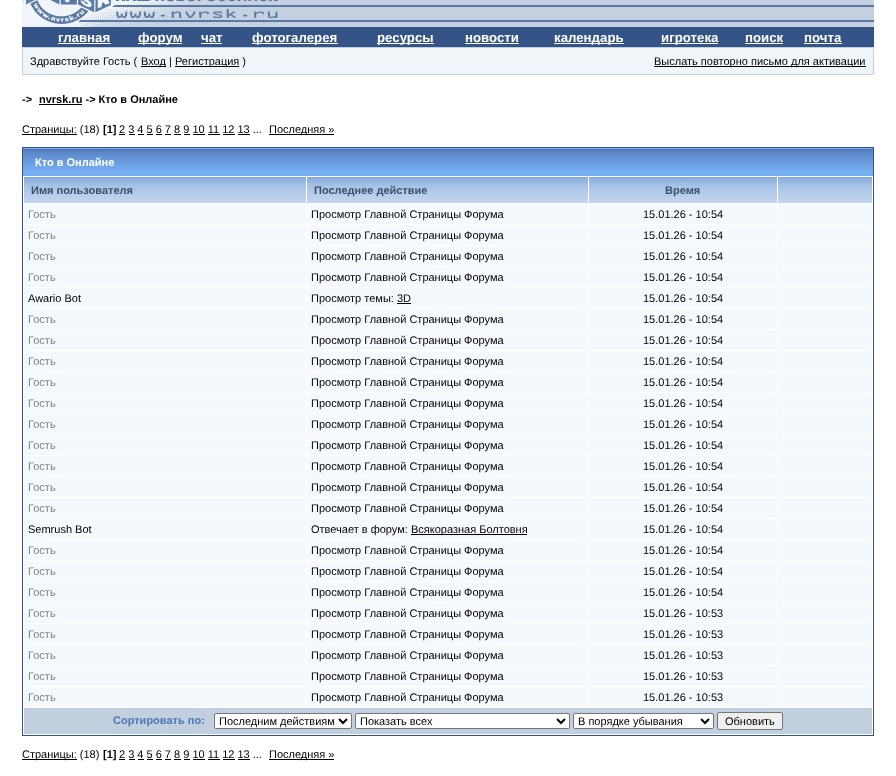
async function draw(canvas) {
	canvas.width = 896;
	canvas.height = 776;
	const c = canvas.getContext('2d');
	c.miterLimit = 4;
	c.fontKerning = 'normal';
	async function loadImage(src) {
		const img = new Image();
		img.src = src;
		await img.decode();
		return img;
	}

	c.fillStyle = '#fff';
	c.fillRect(0, 0, 896, 776);
	c.fillStyle = '#c5d0e0';
	c.fillRect(281, 0, 593, 27);
	c.drawImage(await loadImage('img1.png'), 281, 5, 593, 17);
	c.drawImage(await loadImage('img2.png'), 22, 0, 259, 27);
	c.fillStyle = '#345487';
	c.fillRect(22, 27, 852, 20);
	c.font = 'bold 13.25px Liberation Sans';
	c.fillStyle = '#fff';
	c.fillText('главная', 58, 42);
	c.fillRect(58, 43, 53, 1);
	c.fillRect(138, 43, 44, 1);
	c.fillText('форум', 138, 42);
	c.fillText('чат', 201, 42);
	c.fillRect(201, 43, 21, 1);
	c.fillRect(252, 43, 86, 1);
	c.fillText('фотогалерея', 252, 42);
	c.fillRect(377, 43, 57, 1);
	c.fillText('ресурсы', 377, 42);
	c.fillText('новости', 465, 42);
	c.fillRect(465, 43, 54, 1);
	c.fillRect(554, 43, 70, 1);
	c.fillText('календарь', 554, 42);
	c.fillRect(661, 43, 57, 1);
	c.fillText('игротека', 661, 42);
	c.fillText('поиск', 745, 42);
	c.fillRect(745, 43, 38, 1);
	c.fillText('почта', 804, 42);
	c.fillRect(804, 43, 38, 1);
	c.fillStyle = '#f0f5fa';
	c.beginPath();
	c.rect(22.5, 47.5, 851, 27);
	c.fill();
	c.strokeStyle = '#c2cfdf';
	c.stroke();
	c.font = '11px Liberation Sans';
	c.fillStyle = '#000';
	c.fillText('Здравствуйте Гость (', 30, 65);
	c.fillRect(141, 66, 25, 1);
	c.fillText('Вход |', 141, 65);
	c.fillRect(175, 66, 64, 1);
	c.fillText('Регистрация )', 175, 65);
	c.fillRect(654, 66, 212, 1);
	c.fillText('Выслать повторно письмо для активации', 654, 65);
	c.font = 'bold 11px Liberation Sans';
	c.fillText('->', 22, 103);
	c.fillText('nvrsk.ru -> Кто в Онлайне', 39, 103);
	c.fillRect(39, 104, 43, 1);
	c.fillRect(22, 134, 55, 1);
	c.font = '11px Liberation Sans';
	c.fillText('Страницы: (18)', 22, 133);
	c.font = 'bold 11px Liberation Sans';
	c.fillText('[1]', 103, 133);
	c.font = '11px Liberation Sans';
	c.fillText('2 3 4 5 6 7 8 9 10 11 12 13 ...', 119, 133);
	c.fillRect(119, 134, 6, 1);
	c.fillRect(269, 134, 65, 1);
	c.fillText('Последняя »', 269, 133);
	for (const [x, y, w, h, color] of [
		[129, 134, 6, 1, '#000'],
		[138, 134, 6, 1, '#000'],
		[147, 134, 6, 1, '#000'],
		[156, 134, 6, 1, '#000'],
		[165, 134, 6, 1, '#000'],
		[174, 134, 7, 1, '#000'],
		[184, 134, 6, 1, '#000'],
		[193, 134, 12, 1, '#000'],
		[208, 134, 12, 1, '#000'],
		[223, 134, 12, 1, '#000'],
		[238, 134, 12, 1, '#000'],
	]) {
		c.fillStyle = color;
		c.fillRect(x, y, w, h);
	}
	c.strokeStyle = '#345487';
	c.strokeRect(22.5, 147.5, 851, 588);
	c.drawImage(await loadImage('img3.png'), 23, 148, 850, 28);
	c.font = 'bold 11px Liberation Sans';
	c.fillStyle = '#fff';
	c.fillText('Кто в Онлайне', 35, 166);
	c.drawImage(await loadImage('img4.png'), 24, 177, 282, 26);
	c.fillStyle = '#3a4f6c';
	c.fillText('Имя пользователя', 31, 194);
	c.drawImage(await loadImage('img5.png'), 307, 177, 281, 26);
	c.fillText('Последнее действие', 314, 194);
	c.drawImage(await loadImage('img6.png'), 589, 177, 188, 26);
	c.fillText('Время', 665, 194);
	c.drawImage(await loadImage('img7.png'), 778, 177, 94, 26);
	c.fillStyle = '#f5f9fd';
	c.fillRect(24, 204, 282, 20);
	c.font = '11px Liberation Sans';
	c.fillStyle = '#808080';
	c.fillText('Гость', 28, 218);
	c.fillStyle = '#f5f9fd';
	c.fillRect(307, 204, 281, 20);
	c.fillStyle = '#000';
	c.fillText('Просмотр Главной Страницы Форума', 311, 218);
	c.fillStyle = '#f5f9fd';
	c.fillRect(589, 204, 188, 20);
	c.fillStyle = '#000';
	c.fillText('15.01.26 - 10:54', 643, 218);
	c.fillStyle = '#f5f9fd';
	c.fillRect(778, 204, 94, 20);
	c.fillRect(24, 225, 282, 20);
	c.fillStyle = '#808080';
	c.fillText('Гость', 28, 239);
	c.fillStyle = '#f5f9fd';
	c.fillRect(307, 225, 281, 20);
	c.fillStyle = '#000';
	c.fillText('Просмотр Главной Страницы Форума', 311, 239);
	c.fillStyle = '#f5f9fd';
	c.fillRect(589, 225, 188, 20);
	c.fillStyle = '#000';
	c.fillText('15.01.26 - 10:54', 643, 239);
	c.fillStyle = '#f5f9fd';
	c.fillRect(778, 225, 94, 20);
	c.fillRect(24, 246, 282, 20);
	c.fillStyle = '#808080';
	c.fillText('Гость', 28, 260);
	c.fillStyle = '#f5f9fd';
	c.fillRect(307, 246, 281, 20);
	c.fillStyle = '#000';
	c.fillText('Просмотр Главной Страницы Форума', 311, 260);
	c.fillStyle = '#f5f9fd';
	c.fillRect(589, 246, 188, 20);
	c.fillStyle = '#000';
	c.fillText('15.01.26 - 10:54', 643, 260);
	c.fillStyle = '#f5f9fd';
	c.fillRect(778, 246, 94, 20);
	c.fillRect(24, 267, 282, 20);
	c.fillStyle = '#808080';
	c.fillText('Гость', 28, 281);
	c.fillStyle = '#f5f9fd';
	c.fillRect(307, 267, 281, 20);
	c.fillStyle = '#000';
	c.fillText('Просмотр Главной Страницы Форума', 311, 281);
	c.fillStyle = '#f5f9fd';
	c.fillRect(589, 267, 188, 20);
	c.fillStyle = '#000';
	c.fillText('15.01.26 - 10:54', 643, 281);
	c.fillStyle = '#f5f9fd';
	c.fillRect(778, 267, 94, 20);
	c.fillRect(24, 288, 282, 20);
	c.fillStyle = '#000';
	c.fillText('Awario Bot', 28, 302);
	c.fillStyle = '#f5f9fd';
	c.fillRect(307, 288, 281, 20);
	c.fillStyle = '#000';
	c.fillText('Просмотр темы: 3D', 311, 302);
	c.fillRect(397, 303, 14, 1);
	c.fillStyle = '#f5f9fd';
	c.fillRect(589, 288, 188, 20);
	c.fillStyle = '#000';
	c.fillText('15.01.26 - 10:54', 643, 302);
	c.fillStyle = '#f5f9fd';
	c.fillRect(778, 288, 94, 20);
	c.fillRect(24, 309, 282, 20);
	c.fillStyle = '#808080';
	c.fillText('Гость', 28, 323);
	c.fillStyle = '#f5f9fd';
	c.fillRect(307, 309, 281, 20);
	c.fillStyle = '#000';
	c.fillText('Просмотр Главной Страницы Форума', 311, 323);
	c.fillStyle = '#f5f9fd';
	c.fillRect(589, 309, 188, 20);
	c.fillStyle = '#000';
	c.fillText('15.01.26 - 10:54', 643, 323);
	c.fillStyle = '#f5f9fd';
	c.fillRect(778, 309, 94, 20);
	c.fillRect(24, 330, 282, 20);
	c.fillStyle = '#808080';
	c.fillText('Гость', 28, 344);
	c.fillStyle = '#f5f9fd';
	c.fillRect(307, 330, 281, 20);
	c.fillStyle = '#000';
	c.fillText('Просмотр Главной Страницы Форума', 311, 344);
	c.fillStyle = '#f5f9fd';
	c.fillRect(589, 330, 188, 20);
	c.fillStyle = '#000';
	c.fillText('15.01.26 - 10:54', 643, 344);
	c.fillStyle = '#f5f9fd';
	c.fillRect(778, 330, 94, 20);
	c.fillRect(24, 351, 282, 20);
	c.fillStyle = '#808080';
	c.fillText('Гость', 28, 365);
	c.fillStyle = '#f5f9fd';
	c.fillRect(307, 351, 281, 20);
	c.fillStyle = '#000';
	c.fillText('Просмотр Главной Страницы Форума', 311, 365);
	c.fillStyle = '#f5f9fd';
	c.fillRect(589, 351, 188, 20);
	c.fillStyle = '#000';
	c.fillText('15.01.26 - 10:54', 643, 365);
	c.fillStyle = '#f5f9fd';
	c.fillRect(778, 351, 94, 20);
	c.fillRect(24, 372, 282, 20);
	c.fillStyle = '#808080';
	c.fillText('Гость', 28, 386);
	c.fillStyle = '#f5f9fd';
	c.fillRect(307, 372, 281, 20);
	c.fillStyle = '#000';
	c.fillText('Просмотр Главной Страницы Форума', 311, 386);
	c.fillStyle = '#f5f9fd';
	c.fillRect(589, 372, 188, 20);
	c.fillStyle = '#000';
	c.fillText('15.01.26 - 10:54', 643, 386);
	c.fillStyle = '#f5f9fd';
	c.fillRect(778, 372, 94, 20);
	c.fillRect(24, 393, 282, 20);
	c.fillStyle = '#808080';
	c.fillText('Гость', 28, 407);
	c.fillStyle = '#f5f9fd';
	c.fillRect(307, 393, 281, 20);
	c.fillStyle = '#000';
	c.fillText('Просмотр Главной Страницы Форума', 311, 407);
	c.fillStyle = '#f5f9fd';
	c.fillRect(589, 393, 188, 20);
	c.fillStyle = '#000';
	c.fillText('15.01.26 - 10:54', 643, 407);
	c.fillStyle = '#f5f9fd';
	c.fillRect(778, 393, 94, 20);
	c.fillRect(24, 414, 282, 20);
	c.fillStyle = '#808080';
	c.fillText('Гость', 28, 428);
	c.fillStyle = '#f5f9fd';
	c.fillRect(307, 414, 281, 20);
	c.fillStyle = '#000';
	c.fillText('Просмотр Главной Страницы Форума', 311, 428);
	c.fillStyle = '#f5f9fd';
	c.fillRect(589, 414, 188, 20);
	c.fillStyle = '#000';
	c.fillText('15.01.26 - 10:54', 643, 428);
	c.fillStyle = '#f5f9fd';
	c.fillRect(778, 414, 94, 20);
	c.fillRect(24, 435, 282, 20);
	c.fillStyle = '#808080';
	c.fillText('Гость', 28, 449);
	c.fillStyle = '#f5f9fd';
	c.fillRect(307, 435, 281, 20);
	c.fillStyle = '#000';
	c.fillText('Просмотр Главной Страницы Форума', 311, 449);
	c.fillStyle = '#f5f9fd';
	c.fillRect(589, 435, 188, 20);
	c.fillStyle = '#000';
	c.fillText('15.01.26 - 10:54', 643, 449);
	c.fillStyle = '#f5f9fd';
	c.fillRect(778, 435, 94, 20);
	c.fillRect(24, 456, 282, 20);
	c.fillStyle = '#808080';
	c.fillText('Гость', 28, 470);
	c.fillStyle = '#f5f9fd';
	c.fillRect(307, 456, 281, 20);
	c.fillStyle = '#000';
	c.fillText('Просмотр Главной Страницы Форума', 311, 470);
	c.fillStyle = '#f5f9fd';
	c.fillRect(589, 456, 188, 20);
	c.fillStyle = '#000';
	c.fillText('15.01.26 - 10:54', 643, 470);
	c.fillStyle = '#f5f9fd';
	c.fillRect(778, 456, 94, 20);
	c.fillRect(24, 477, 282, 20);
	c.fillStyle = '#808080';
	c.fillText('Гость', 28, 491);
	c.fillStyle = '#f5f9fd';
	c.fillRect(307, 477, 281, 20);
	c.fillStyle = '#000';
	c.fillText('Просмотр Главной Страницы Форума', 311, 491);
	c.fillStyle = '#f5f9fd';
	c.fillRect(589, 477, 188, 20);
	c.fillStyle = '#000';
	c.fillText('15.01.26 - 10:54', 643, 491);
	c.fillStyle = '#f5f9fd';
	c.fillRect(778, 477, 94, 20);
	c.fillRect(24, 498, 282, 20);
	c.fillStyle = '#808080';
	c.fillText('Гость', 28, 512);
	c.fillStyle = '#f5f9fd';
	c.fillRect(307, 498, 281, 20);
	c.fillStyle = '#000';
	c.fillText('Просмотр Главной Страницы Форума', 311, 512);
	c.fillStyle = '#f5f9fd';
	c.fillRect(589, 498, 188, 20);
	c.fillStyle = '#000';
	c.fillText('15.01.26 - 10:54', 643, 512);
	c.fillStyle = '#f5f9fd';
	c.fillRect(778, 498, 94, 20);
	c.fillRect(24, 519, 282, 20);
	c.fillStyle = '#000';
	c.fillText('Semrush Bot', 28, 533);
	c.fillStyle = '#f5f9fd';
	c.fillRect(307, 519, 281, 20);
	c.fillStyle = '#000';
	c.fillText('Отвечает в форум:', 311, 533);
	c.fillRect(411, 534, 116, 1);
	c.fillText('Всякоразная Болтовня', 411, 533);
	c.fillStyle = '#f5f9fd';
	c.fillRect(589, 519, 188, 20);
	c.fillStyle = '#000';
	c.fillText('15.01.26 - 10:54', 643, 533);
	c.fillStyle = '#f5f9fd';
	c.fillRect(778, 519, 94, 20);
	c.fillRect(24, 540, 282, 20);
	c.fillStyle = '#808080';
	c.fillText('Гость', 28, 554);
	c.fillStyle = '#f5f9fd';
	c.fillRect(307, 540, 281, 20);
	c.fillStyle = '#000';
	c.fillText('Просмотр Главной Страницы Форума', 311, 554);
	c.fillStyle = '#f5f9fd';
	c.fillRect(589, 540, 188, 20);
	c.fillStyle = '#000';
	c.fillText('15.01.26 - 10:54', 643, 554);
	c.fillStyle = '#f5f9fd';
	c.fillRect(778, 540, 94, 20);
	c.fillRect(24, 561, 282, 20);
	c.fillStyle = '#808080';
	c.fillText('Гость', 28, 575);
	c.fillStyle = '#f5f9fd';
	c.fillRect(307, 561, 281, 20);
	c.fillStyle = '#000';
	c.fillText('Просмотр Главной Страницы Форума', 311, 575);
	c.fillStyle = '#f5f9fd';
	c.fillRect(589, 561, 188, 20);
	c.fillStyle = '#000';
	c.fillText('15.01.26 - 10:54', 643, 575);
	c.fillStyle = '#f5f9fd';
	c.fillRect(778, 561, 94, 20);
	c.fillRect(24, 582, 282, 20);
	c.fillStyle = '#808080';
	c.fillText('Гость', 28, 596);
	c.fillStyle = '#f5f9fd';
	c.fillRect(307, 582, 281, 20);
	c.fillStyle = '#000';
	c.fillText('Просмотр Главной Страницы Форума', 311, 596);
	c.fillStyle = '#f5f9fd';
	c.fillRect(589, 582, 188, 20);
	c.fillStyle = '#000';
	c.fillText('15.01.26 - 10:54', 643, 596);
	c.fillStyle = '#f5f9fd';
	c.fillRect(778, 582, 94, 20);
	c.fillRect(24, 603, 282, 20);
	c.fillStyle = '#808080';
	c.fillText('Гость', 28, 617);
	c.fillStyle = '#f5f9fd';
	c.fillRect(307, 603, 281, 20);
	c.fillStyle = '#000';
	c.fillText('Просмотр Главной Страницы Форума', 311, 617);
	c.fillStyle = '#f5f9fd';
	c.fillRect(589, 603, 188, 20);
	c.fillStyle = '#000';
	c.fillText('15.01.26 - 10:53', 643, 617);
	c.fillStyle = '#f5f9fd';
	c.fillRect(778, 603, 94, 20);
	c.fillRect(24, 624, 282, 20);
	c.fillStyle = '#808080';
	c.fillText('Гость', 28, 638);
	c.fillStyle = '#f5f9fd';
	c.fillRect(307, 624, 281, 20);
	c.fillStyle = '#000';
	c.fillText('Просмотр Главной Страницы Форума', 311, 638);
	c.fillStyle = '#f5f9fd';
	c.fillRect(589, 624, 188, 20);
	c.fillStyle = '#000';
	c.fillText('15.01.26 - 10:53', 643, 638);
	c.fillStyle = '#f5f9fd';
	c.fillRect(778, 624, 94, 20);
	c.fillRect(24, 645, 282, 20);
	c.fillStyle = '#808080';
	c.fillText('Гость', 28, 659);
	c.fillStyle = '#f5f9fd';
	c.fillRect(307, 645, 281, 20);
	c.fillStyle = '#000';
	c.fillText('Просмотр Главной Страницы Форума', 311, 659);
	c.fillStyle = '#f5f9fd';
	c.fillRect(589, 645, 188, 20);
	c.fillStyle = '#000';
	c.fillText('15.01.26 - 10:53', 643, 659);
	c.fillStyle = '#f5f9fd';
	c.fillRect(778, 645, 94, 20);
	c.fillRect(24, 666, 282, 20);
	c.fillStyle = '#808080';
	c.fillText('Гость', 28, 680);
	c.fillStyle = '#f5f9fd';
	c.fillRect(307, 666, 281, 20);
	c.fillStyle = '#000';
	c.fillText('Просмотр Главной Страницы Форума', 311, 680);
	c.fillStyle = '#f5f9fd';
	c.fillRect(589, 666, 188, 20);
	c.fillStyle = '#000';
	c.fillText('15.01.26 - 10:53', 643, 680);
	c.fillStyle = '#f5f9fd';
	c.fillRect(778, 666, 94, 20);
	c.fillRect(24, 687, 282, 20);
	c.fillStyle = '#808080';
	c.fillText('Гость', 28, 701);
	c.fillStyle = '#f5f9fd';
	c.fillRect(307, 687, 281, 20);
	c.fillStyle = '#000';
	c.fillText('Просмотр Главной Страницы Форума', 311, 701);
	c.fillStyle = '#f5f9fd';
	c.fillRect(589, 687, 188, 20);
	c.fillStyle = '#000';
	c.fillText('15.01.26 - 10:53', 643, 701);
	c.fillStyle = '#f5f9fd';
	c.fillRect(778, 687, 94, 20);
	c.fillStyle = '#c2cfdf';
	c.fillRect(24, 708, 848, 26);
	c.font = 'bold 11px Liberation Sans';
	c.fillStyle = '#4c77b6';
	c.fillText('Сортировать по:', 113, 724);
	c.fillStyle = '#fff';
	c.beginPath();
	c.roundRect(214.5, 713.5, 137, 15, 1.5);
	c.fill();
	c.strokeStyle = '#767676';
	c.stroke();
	c.beginPath();
	c.moveTo(339, 719);
	c.lineTo(343, 723);
	c.lineTo(347, 719);
	c.strokeStyle = '#000';
	c.lineWidth = 2;
	c.stroke();
	c.font = '11px Liberation Sans';
	c.fillStyle = '#000';
	c.fillText('Последним действиям', 219, 725);
	c.fillStyle = '#fff';
	c.beginPath();
	c.roundRect(355.5, 713.5, 214, 15, 1.5);
	c.fill();
	c.strokeStyle = '#767676';
	c.lineWidth = 1;
	c.stroke();
	c.beginPath();
	c.moveTo(557, 719);
	c.lineTo(561, 723);
	c.lineTo(565, 719);
	c.strokeStyle = '#000';
	c.lineWidth = 2;
	c.stroke();
	c.fillStyle = '#000';
	c.fillText('Показать всех', 360, 725);
	c.fillStyle = '#fff';
	c.beginPath();
	c.roundRect(573.5, 713.5, 140, 15, 1.5);
	c.fill();
	c.strokeStyle = '#767676';
	c.lineWidth = 1;
	c.stroke();
	c.beginPath();
	c.moveTo(701, 719);
	c.lineTo(705, 723);
	c.lineTo(709, 719);
	c.strokeStyle = '#000';
	c.lineWidth = 2;
	c.stroke();
	c.fillStyle = '#000';
	c.fillText('В порядке убывания', 578, 725);
	c.fillStyle = '#efefef';
	c.beginPath();
	c.roundRect(717.5, 712.5, 65, 17, 1.5);
	c.fill();
	c.strokeStyle = '#767676';
	c.lineWidth = 1;
	c.stroke();
	c.fillStyle = '#000';
	c.fillText('Обновить', 725, 725);
	c.fillRect(22, 759, 55, 1);
	c.fillText('Страницы: (18)', 22, 758);
	c.font = 'bold 11px Liberation Sans';
	c.fillText('[1]', 103, 758);
	c.font = '11px Liberation Sans';
	c.fillText('2 3 4 5 6 7 8 9 10 11 12 13 ...', 119, 758);
	c.fillRect(119, 759, 6, 1);
	c.fillRect(269, 759, 65, 1);
	c.fillText('Последняя »', 269, 758);
	for (const [x, y, w, h, color] of [
		[129, 759, 6, 1, '#000'],
		[138, 759, 6, 1, '#000'],
		[147, 759, 6, 1, '#000'],
		[156, 759, 6, 1, '#000'],
		[165, 759, 6, 1, '#000'],
		[174, 759, 7, 1, '#000'],
		[184, 759, 6, 1, '#000'],
		[193, 759, 12, 1, '#000'],
		[208, 759, 12, 1, '#000'],
		[223, 759, 12, 1, '#000'],
		[238, 759, 12, 1, '#000'],
	]) {
		c.fillStyle = color;
		c.fillRect(x, y, w, h);
	}
}

draw(document.querySelector('canvas'));
